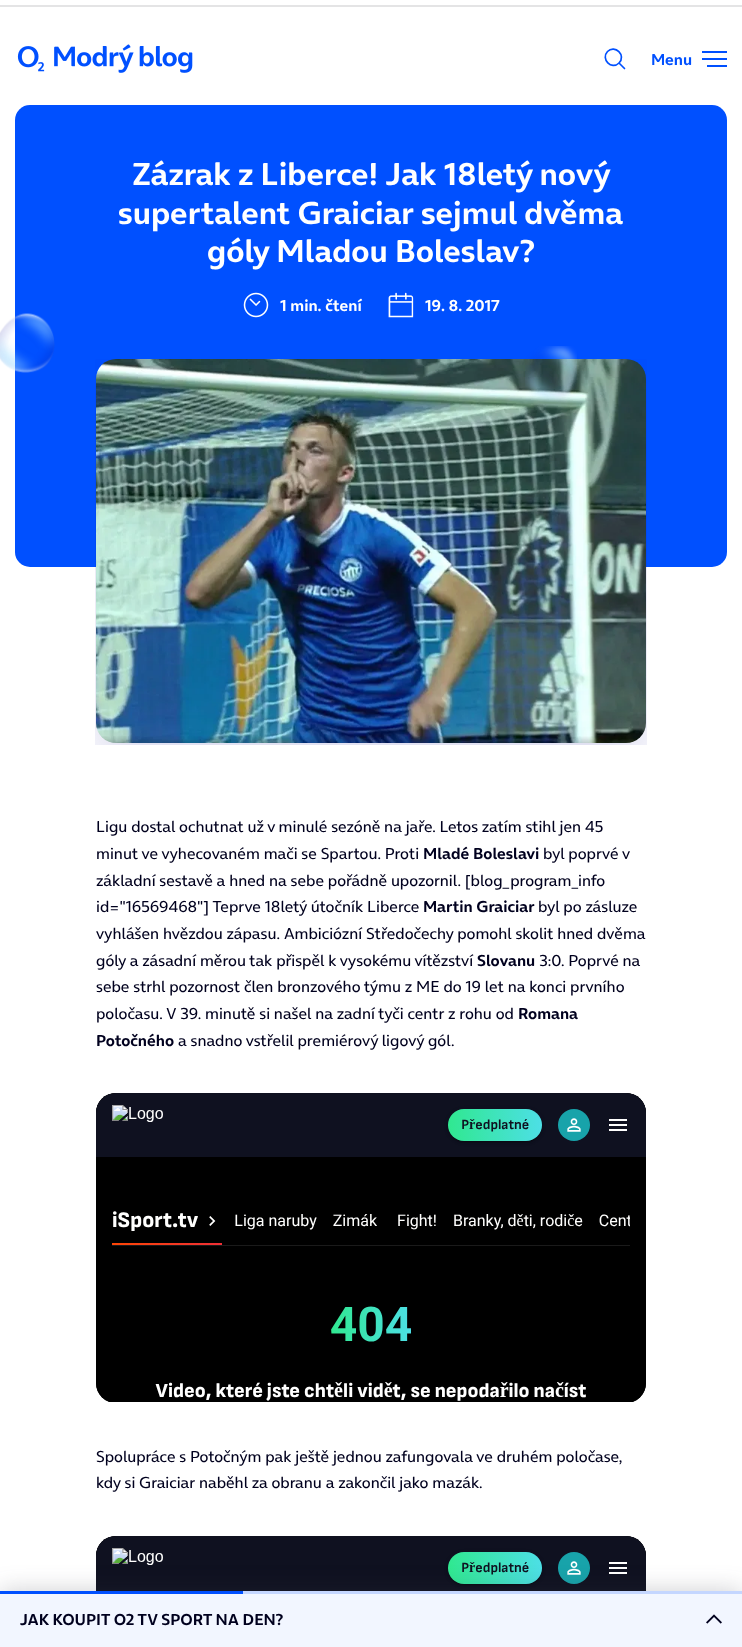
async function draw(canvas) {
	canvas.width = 742;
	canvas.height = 1647;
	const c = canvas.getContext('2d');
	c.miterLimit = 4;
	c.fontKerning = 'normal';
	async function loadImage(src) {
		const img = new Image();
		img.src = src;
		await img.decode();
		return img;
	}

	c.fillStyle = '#fff';
	c.fillRect(0, 0, 742, 1647);
	c.fillStyle = '#e4e4e5';
	c.fillRect(0, 5, 742, 2);
	c.drawImage(await loadImage('img1.png'), 17, 44, 176, 29);
	c.beginPath();
	c.moveTo(624.5, 68.5);
	c.lineTo(619.5, 63.5);
	c.moveTo(619, 63);
	c.bezierCurveTo(611.5, 70.5, 600.5, 59, 607.5, 51.5);
	c.bezierCurveTo(615, 44, 626.5, 55.5, 619, 63);
	c.closePath();
	c.strokeStyle = '#0050ff';
	c.lineWidth = 1.7;
	c.lineCap = 'round';
	c.lineJoin = 'round';
	c.stroke();
	c.font = 'bold 16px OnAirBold';
	c.fillStyle = '#0050ff';
	c.fillText('Menu', 651, 65);
	for (const [x, y, w, h, color] of [
		[702, 51, 25, 2, '#0050ff'],
		[702, 58, 25, 2, '#0050ff'],
		[707, 65, 20, 2, '#0050ff'],
	]) {
		c.fillStyle = color;
		c.fillRect(x, y, w, h);
	}
	c.beginPath();
	c.roundRect(15, 105, 712, 462, 15);
	c.fill();
	c.font = 'bold 32px OnAirBold';
	c.fillStyle = '#fff';
	for (const [text, x, y] of [
		['Zázrak z Liberce! Jak 18letý nový', 132, 185],
		['supertalent Graiciar sejmul dvěma', 118, 224],
		['góly Mladou Boleslav?', 207, 262],
	]) {
		c.fillText(text, x, y);
	}
	c.drawImage(await loadImage('img2.png'), 243, 292, 26, 26);
	c.font = 'bold 16px OnAirBold';
	c.fillText('1 min. čtení', 280, 311);
	c.drawImage(await loadImage('img3.png'), 388, 292, 26, 26);
	c.fillText('19. 8. 2017', 425, 311);
	c.drawImage(await loadImage('img4.png'), 95, 359, 552, 386);
	c.drawImage(await loadImage('img5.png'), 0, 313, 55, 60);
	c.drawImage(await loadImage('img6.png'), 525, 346, 52, 56);
	c.font = '16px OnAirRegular';
	c.fillStyle = '#00001e';
	c.fillText('Ligu dostal ochutnat už v minulé sezóně na jaře. Letos zatím stihl jen 45', 96, 832);
	c.fillText('minut ve vyhecovaném mači se Spartou. Proti', 96, 859);
	c.font = 'bold 16px OnAirBold';
	c.fillText('Mladé Boleslavi', 423, 859);
	c.font = '16px OnAirRegular';
	for (const [text, x, y] of [
		['byl poprvé v', 543, 859],
		['základní sestavě a hned na sebe pořádně upozornil. [blog_program_info', 96, 886],
		['id="16569468"] Teprve 18letý útočník Liberce', 96, 912],
	]) {
		c.fillText(text, x, y);
	}
	c.font = 'bold 16px OnAirBold';
	c.fillText('Martin Graiciar', 423, 912);
	c.font = '16px OnAirRegular';
	for (const [text, x, y] of [
		['byl po zásluze', 538, 912],
		['vyhlášen hvězdou zápasu. Ambiciózní Středočechy pomohl skolit hned dvěma', 96, 939],
		['góly a zásadní měrou tak přispěl k vysokému vítězství', 96, 966],
	]) {
		c.fillText(text, x, y);
	}
	c.font = 'bold 16px OnAirBold';
	c.fillText('Slovanu', 477, 966);
	c.font = '16px OnAirRegular';
	for (const [text, x, y] of [
		['3:0. Poprvé na', 539, 966],
		['sebe strhl pozornost člen bronzového týmu z ME do 19 let na konci prvního', 96, 992],
		['poločasu. V 39. minutě si našel na zadní tyči centr z rohu od', 96, 1019],
	]) {
		c.fillText(text, x, y);
	}
	c.font = 'bold 16px OnAirBold';
	c.fillText('Romana', 518, 1019);
	c.fillText('Potočného', 96, 1046);
	c.font = '16px OnAirRegular';
	c.fillText('a snadno vstřelil premiérový ligový gól.', 178, 1046);
	c.drawImage(await loadImage('img7.png'), 96, 1093, 550, 309);
	c.fillText('Spolupráce s Potočným pak ještě jednou zafungovala ve druhém poločase,', 96, 1462);
	c.fillText('kdy si Graiciar naběhl za obranu a zakončil jako mazák.', 96, 1488);
	c.drawImage(await loadImage('img8.png'), 96, 1536, 550, 55);
	c.fillStyle = '#3c3c4640';
	c.filter = 'blur(12.5px)';
	c.beginPath();
	c.rect(0, 1591, 742, 56);
	c.fill();
	c.filter = 'none';
	for (const [x, y, w, h, color] of [
		[0, 1594, 742, 53, '#f2f6ff'],
		[0, 1591, 243, 3, '#0050ff'],
		[243, 1591, 499, 3, '#c4d6ff'],
	]) {
		c.fillStyle = color;
		c.fillRect(x, y, w, h);
	}
	c.font = 'bold 16px OnAirBold';
	c.fillStyle = '#00001e';
	c.fillText('JAK KOUPIT O2 TV SPORT NA DEN?', 20, 1625);
	c.drawImage(await loadImage('img9.png'), 706, 1614, 16, 10);
}

draw(document.querySelector('canvas'));
